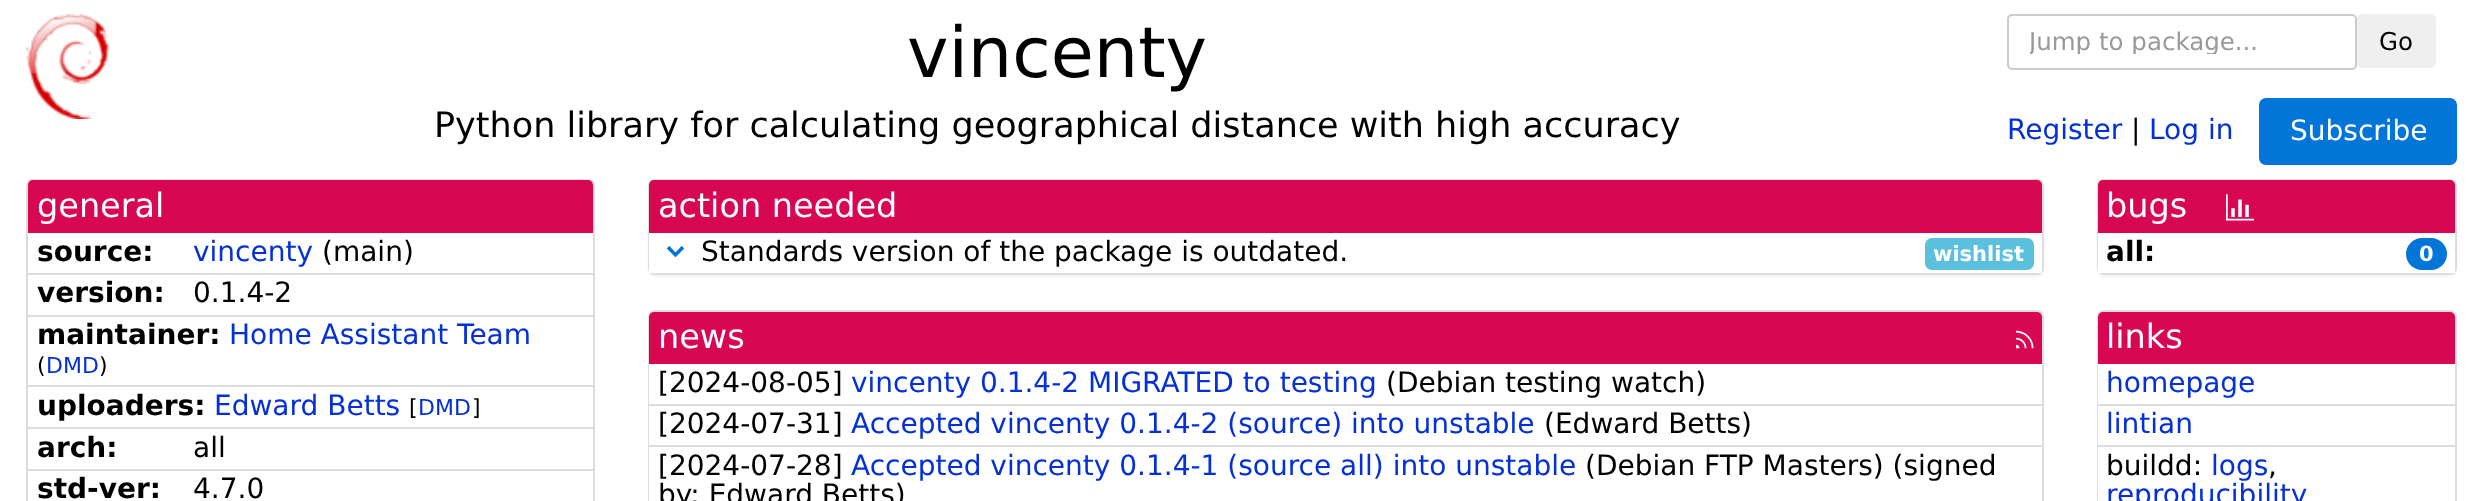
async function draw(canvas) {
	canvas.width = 2482;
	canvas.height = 501;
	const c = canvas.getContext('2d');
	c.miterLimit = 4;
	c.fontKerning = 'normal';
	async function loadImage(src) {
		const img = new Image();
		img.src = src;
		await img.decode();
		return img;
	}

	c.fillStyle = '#fff';
	c.fillRect(0, 0, 2482, 501);
	c.drawImage(await loadImage('img1.png'), 26, 14, 83, 105);
	c.font = '70px DejaVu Sans';
	c.fillStyle = '#000';
	c.fillText('vincenty', 907, 77);
	c.font = '35px DejaVu Sans';
	c.fillText('Python library for calculating geographical distance with high accuracy', 434, 137);
	c.beginPath();
	c.roundRect(2008, 15, 348, 54, 4);
	c.strokeStyle = '#ccc';
	c.lineWidth = 2;
	c.stroke();
	c.save();
	c.beginPath();
	c.rect(2030, 26, 298, 28);
	c.clip();
	c.font = '24.5px DejaVu Sans';
	c.fillStyle = '#999';
	c.fillText('Jump to package...', 2029, 50);
	c.restore();
	c.fillStyle = '#efefef';
	c.beginPath();
	c.roundRect(2357, 14, 79, 54, 5);
	c.fill();
	c.font = '24.5px DejaVu Sans';
	c.fillStyle = '#000';
	c.fillText('Go', 2379, 50);
	c.font = '28px DejaVu Sans';
	c.fillStyle = '#0530d7';
	c.fillText('Register', 2007, 139);
	c.fillStyle = '#000';
	c.fillText('|', 2131, 139);
	c.fillStyle = '#0530d7';
	c.fillText('Log in', 2149, 139);
	c.fillStyle = '#0275d8';
	c.beginPath();
	c.roundRect(2260, 99, 196, 65, 6);
	c.fill();
	c.strokeStyle = '#0275d8';
	c.stroke();
	c.fillStyle = '#fff';
	c.fillText('Subscribe', 2290, 140);
	c.beginPath();
	c.roundRect(27, 180, 567, 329, 6);
	c.strokeStyle = '#ddd';
	c.stroke();
	c.fillStyle = '#d70751';
	c.beginPath();
	c.roundRect(28, 180, 565, 55, [5, 5, 0, 0]);
	c.fill();
	c.font = '33.5px DejaVu Sans';
	c.fillStyle = '#fff';
	c.fillText('general', 37, 217);
	c.fillRect(28, 233, 565, 2);
	c.fillStyle = '#ddd';
	c.fillRect(28, 273, 565, 2);
	c.font = 'bold 28px DejaVu Sans';
	c.fillStyle = '#000';
	c.fillText('source:', 37, 261);
	c.font = '28px DejaVu Sans';
	c.fillStyle = '#0530d7';
	c.fillText('vincenty', 193, 261);
	c.fillStyle = '#000';
	c.fillText('(main)', 322, 261);
	c.fillStyle = '#ddd';
	c.fillRect(28, 315, 565, 2);
	c.font = 'bold 28px DejaVu Sans';
	c.fillStyle = '#000';
	c.fillText('version:', 37, 302);
	c.font = '28px DejaVu Sans';
	c.fillText('0.1.4-2', 193, 302);
	c.fillStyle = '#ddd';
	c.fillRect(28, 385, 565, 2);
	c.font = 'bold 28px DejaVu Sans';
	c.fillStyle = '#000';
	c.fillText('maintainer:', 37, 344);
	c.font = '28px DejaVu Sans';
	c.fillStyle = '#0530d7';
	c.fillText('Home Assistant Team', 229, 344);
	c.font = '22px DejaVu Sans';
	c.fillStyle = '#000';
	c.fillText('(', 37, 373);
	c.fillStyle = '#0530d7';
	c.fillText('DMD', 46, 373);
	c.fillStyle = '#000';
	c.fillText(')', 99, 373);
	c.fillStyle = '#ddd';
	c.fillRect(28, 427, 565, 2);
	c.font = 'bold 28px DejaVu Sans';
	c.fillStyle = '#000';
	c.fillText('uploaders:', 37, 415);
	c.font = '28px DejaVu Sans';
	c.fillStyle = '#0530d7';
	c.fillText('Edward Betts', 214, 415);
	c.font = '22px DejaVu Sans';
	c.fillStyle = '#000';
	c.fillText('[', 409, 415);
	c.fillStyle = '#0530d7';
	c.fillText('DMD', 418, 415);
	c.fillStyle = '#000';
	c.fillText(']', 472, 415);
	c.fillStyle = '#ddd';
	c.fillRect(28, 469, 565, 2);
	c.font = 'bold 28px DejaVu Sans';
	c.fillStyle = '#000';
	c.fillText('arch:', 37, 457);
	c.font = '28px DejaVu Sans';
	c.fillText('all', 193, 457);
	c.font = 'bold 28px DejaVu Sans';
	c.fillText('std-ver:', 37, 498);
	c.font = '28px DejaVu Sans';
	c.fillText('4.7.0', 193, 498);
	c.fillStyle = '#0000000d';
	c.filter = 'blur(1px)';
	c.beginPath();
	c.roundRect(648, 180, 1396, 97, 7);
	c.fill();
	c.filter = 'none';
	c.beginPath();
	c.roundRect(649, 180, 1394, 94, 6);
	c.stroke();
	c.fillStyle = '#d70751';
	c.beginPath();
	c.roundRect(649, 180, 1393, 55, [5, 5, 0, 0]);
	c.fill();
	c.font = '33.5px DejaVu Sans';
	c.fillStyle = '#fff';
	c.fillText('action needed', 658, 217);
	c.fillRect(649, 233, 1393, 40);
	c.drawImage(await loadImage('img2.png'), 666, 246, 19, 12);
	c.font = '28px DejaVu Sans';
	c.fillStyle = '#000';
	c.fillText('Standards version of the package is outdated.', 701, 261);
	c.fillStyle = '#5bc0de';
	c.beginPath();
	c.roundRect(1925, 238, 109, 32, 7);
	c.fill();
	c.font = 'bold 21px DejaVu Sans';
	c.fillStyle = '#fff';
	c.fillText('wishlist', 1933, 261);
	c.beginPath();
	c.roundRect(649, 311, 1394, 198, 6);
	c.stroke();
	c.fillStyle = '#d70751';
	c.beginPath();
	c.roundRect(649, 312, 1393, 54, [5, 5, 0, 0]);
	c.fill();
	c.font = '33.5px DejaVu Sans';
	c.fillStyle = '#fff';
	c.fillText('news', 658, 348);
	c.drawImage(await loadImage('img3.png'), 2016, 330, 18, 19);
	c.fillRect(649, 364, 1393, 81);
	c.fillStyle = '#ddd';
	c.fillRect(649, 404, 1393, 2);
	c.font = '28px DejaVu Sans';
	c.fillStyle = '#000';
	c.fillText('[2024-08-05]', 658, 392);
	c.fillStyle = '#0530d7';
	c.fillText('vincenty 0.1.4-2 MIGRATED to testing', 851, 392);
	c.fillStyle = '#000';
	c.fillText('(Debian testing watch)', 1386, 392);
	c.fillText('[2024-07-31]', 658, 433);
	c.fillStyle = '#0530d7';
	c.fillText('Accepted vincenty 0.1.4-2 (source) into unstable', 851, 433);
	c.fillStyle = '#000';
	c.fillText('(Edward Betts)', 1544, 433);
	c.fillStyle = '#fff';
	c.fillRect(649, 447, 1, 54);
	c.fillStyle = '#ddd';
	c.fillRect(649, 445, 1393, 2);
	c.fillStyle = '#000';
	c.fillText('[2024-07-28]', 658, 475);
	c.fillStyle = '#0530d7';
	c.fillText('Accepted vincenty 0.1.4-1 (source all) into unstable', 851, 475);
	c.fillStyle = '#000';
	c.fillText('(Debian FTP Masters) (signed', 1585, 475);
	c.fillText('by: Edward Betts)', 658, 504);
	c.fillStyle = '#0000000d';
	c.filter = 'blur(1px)';
	c.beginPath();
	c.roundRect(2097, 180, 360, 97, 7);
	c.fill();
	c.filter = 'none';
	c.beginPath();
	c.roundRect(2098, 180, 358, 94, 6);
	c.stroke();
	c.fillStyle = '#d70751';
	c.beginPath();
	c.roundRect(2098, 180, 357, 55, [5, 5, 0, 0]);
	c.fill();
	c.font = '33.5px DejaVu Sans';
	c.fillStyle = '#fff';
	c.fillText('bugs', 2106, 217);
	c.drawImage(await loadImage('img4.png'), 2226, 194, 28, 27);
	c.fillRect(2098, 233, 357, 40);
	c.font = 'bold 28px DejaVu Sans';
	c.fillStyle = '#000';
	c.fillText('all:', 2106, 261);
	c.fillStyle = '#0275d8';
	c.beginPath();
	c.roundRect(2406, 238, 41, 32, 16);
	c.fill();
	c.font = 'bold 21px DejaVu Sans';
	c.fillStyle = '#fff';
	c.fillText('0', 2419, 261);
	c.beginPath();
	c.roundRect(2098, 311, 358, 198, 6);
	c.stroke();
	c.fillStyle = '#d70751';
	c.beginPath();
	c.roundRect(2098, 312, 357, 54, [5, 5, 0, 0]);
	c.fill();
	c.font = '33.5px DejaVu Sans';
	c.fillStyle = '#fff';
	c.fillText('links', 2106, 348);
	c.fillRect(2098, 364, 357, 81);
	c.fillStyle = '#ddd';
	c.fillRect(2098, 404, 357, 2);
	c.font = '28px DejaVu Sans';
	c.fillStyle = '#0530d7';
	c.fillText('homepage', 2106, 392);
	c.fillText('lintian', 2106, 433);
	c.fillStyle = '#fff';
	c.fillRect(2098, 447, 1, 54);
	c.fillStyle = '#ddd';
	c.fillRect(2098, 445, 357, 2);
	c.fillStyle = '#000';
	c.fillText('buildd:', 2106, 475);
	c.fillStyle = '#0530d7';
	c.fillText('logs', 2211, 475);
	c.fillStyle = '#000';
	c.fillText(',', 2268, 475);
	c.fillStyle = '#0530d7';
	c.fillText('reproducibility', 2106, 504);
}

draw(document.querySelector('canvas'));
